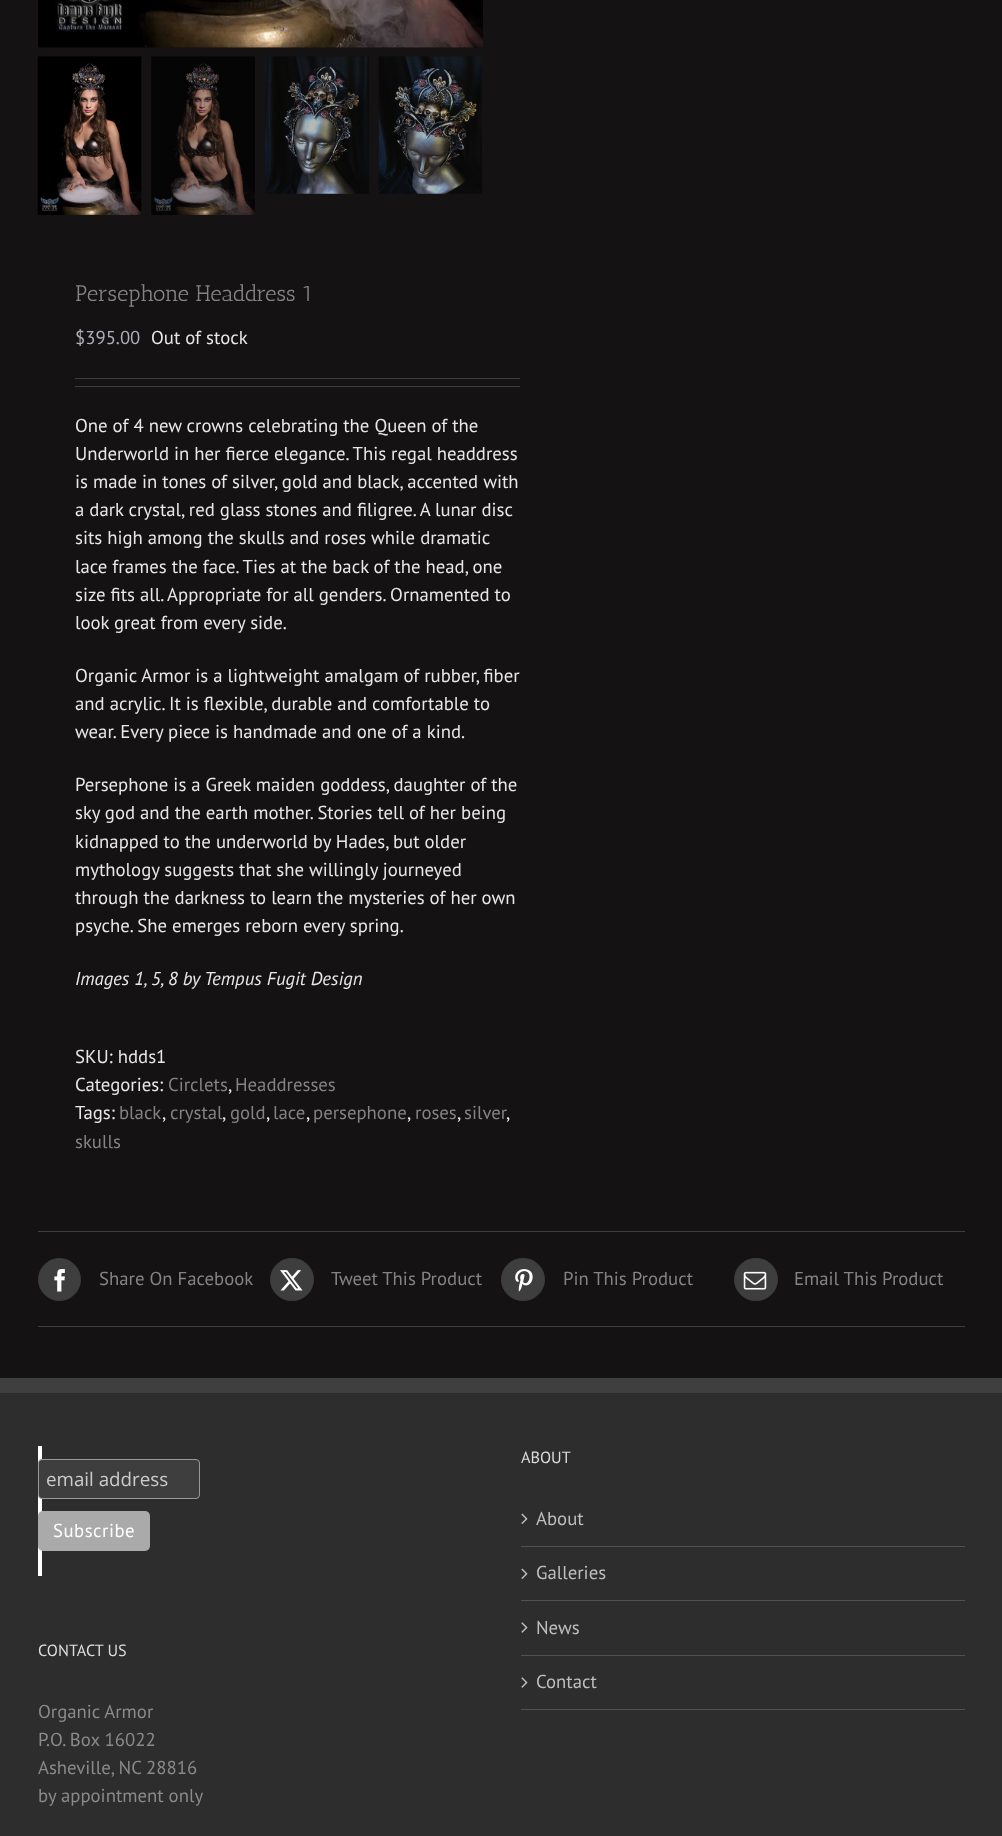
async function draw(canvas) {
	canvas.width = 1002;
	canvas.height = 1836;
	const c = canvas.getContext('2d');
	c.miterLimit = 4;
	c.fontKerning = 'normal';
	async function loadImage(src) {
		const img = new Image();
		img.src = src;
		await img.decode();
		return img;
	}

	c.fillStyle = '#141212';
	c.fillRect(0, 0, 1002, 1836);
	c.drawImage(await loadImage('img1.png'), 38, 0, 445, 48);
	c.drawImage(await loadImage('img2.png'), 37, 56, 105, 159);
	c.drawImage(await loadImage('img3.png'), 151, 56, 104, 159);
	c.drawImage(await loadImage('img4.png'), 265, 56, 104, 138);
	c.drawImage(await loadImage('img5.png'), 378, 56, 104, 138);
	c.font = '22.5px Antic Slab';
	c.fillStyle = '#858383';
	c.fillText('Persephone Headdress 1', 75, 301);
	c.font = '18.75px PT Sans';
	c.fillStyle = '#b2adb8';
	c.fillText('$395.00', 75, 344);
	c.fillStyle = '#e8e8e8';
	c.fillText('Out of stock', 151, 344);
	c.fillStyle = '#3e3e3e';
	c.fillRect(75, 378, 445, 1);
	c.fillRect(75, 386, 445, 1);
	c.fillStyle = '#e8e8e8';
	for (const [text, x, y] of [
		['One of 4 new crowns celebrating the Queen of the', 75, 432],
		['Underworld in her fierce elegance. This regal headdress', 75, 460],
		['is made in tones of silver, gold and black, accented with', 75, 488],
		['a dark crystal, red glass stones and filigree. A lunar disc', 75, 516],
		['sits high among the skulls and roses while dramatic', 75, 544],
		['lace frames the face. Ties at the back of the head, one', 75, 573],
		['size fits all. Appropriate for all genders. Ornamented to', 75, 601],
		['look great from every side.', 75, 629],
		['Organic Armor is a lightweight amalgam of rubber, fiber', 75, 682],
		['and acrylic. It is flexible, durable and comfortable to', 75, 710],
		['wear. Every piece is handmade and one of a kind.', 75, 738],
		['Persephone is a Greek maiden goddess, daughter of the', 75, 791],
		['sky god and the earth mother. Stories tell of her being', 75, 819],
		['kidnapped to the underworld by Hades, but older', 75, 848],
		['mythology suggests that she willingly journeyed', 75, 876],
		['through the darkness to learn the mysteries of her own', 75, 904],
		['psyche. She emerges reborn every spring.', 75, 932],
	]) {
		c.fillText(text, x, y);
	}
	c.font = 'italic 18.75px PT Sans';
	c.fillText('Images 1, 5, 8 by Tempus Fugit Design', 75, 985);
	c.font = '18.75px PT Sans';
	c.fillText('SKU: hdds1', 75, 1063);
	c.fillText('Categories:', 75, 1091);
	c.fillStyle = '#858383';
	c.fillText('Circlets', 168, 1091);
	c.fillStyle = '#e8e8e8';
	c.fillText(',', 228, 1091);
	c.fillStyle = '#858383';
	c.fillText('Headdresses', 235, 1091);
	c.fillStyle = '#e8e8e8';
	c.fillText('Tags:', 75, 1119);
	c.fillStyle = '#858383';
	c.fillText('black', 119, 1119);
	c.fillStyle = '#e8e8e8';
	c.fillText(',', 162, 1119);
	c.fillStyle = '#858383';
	c.fillText('crystal', 170, 1119);
	c.fillStyle = '#e8e8e8';
	c.fillText(',', 222, 1119);
	c.fillStyle = '#858383';
	c.fillText('gold', 230, 1119);
	c.fillStyle = '#e8e8e8';
	c.fillText(',', 266, 1119);
	c.fillStyle = '#858383';
	c.fillText('lace', 273, 1119);
	c.fillStyle = '#e8e8e8';
	c.fillText(',', 306, 1119);
	c.fillStyle = '#858383';
	c.fillText('persephone', 313, 1119);
	c.fillStyle = '#e8e8e8';
	c.fillText(',', 407, 1119);
	c.fillStyle = '#858383';
	c.fillText('roses', 415, 1119);
	c.fillStyle = '#e8e8e8';
	c.fillText(',', 457, 1119);
	c.fillStyle = '#858383';
	c.fillText('silver', 464, 1119);
	c.fillStyle = '#e8e8e8';
	c.fillText(',', 506, 1119);
	c.fillStyle = '#858383';
	c.fillText('skulls', 75, 1148);
	c.fillStyle = '#3e3e3e';
	c.fillRect(38, 1231, 927, 1);
	c.fillRect(38, 1326, 927, 1);
	c.beginPath();
	c.arc(59.5, 1279.5, 21, 0, 2 * Math.PI);
	c.fill();
	c.strokeStyle = '#3e3e3e';
	c.stroke();
	c.drawImage(await loadImage('img6.png'), 54, 1269, 11, 23);
	c.fillStyle = '#858383';
	c.fillText('Share On Facebook', 99, 1285);
	c.fillStyle = '#3e3e3e';
	c.beginPath();
	c.roundRect(270.5, 1258.5, 43, 42, 21);
	c.fill();
	c.stroke();
	c.drawImage(await loadImage('img7.png'), 280, 1270, 23, 21);
	c.fillStyle = '#858383';
	c.fillText('Tweet This Product', 331, 1285);
	c.fillStyle = '#3e3e3e';
	c.beginPath();
	c.roundRect(501.5, 1258.5, 43, 42, 21);
	c.fill();
	c.stroke();
	c.drawImage(await loadImage('img8.png'), 515, 1269, 18, 23);
	c.fillStyle = '#858383';
	c.fillText('Pin This Product', 563, 1285);
	c.fillStyle = '#3e3e3e';
	c.beginPath();
	c.roundRect(734.5, 1258.5, 43, 42, 21);
	c.fill();
	c.stroke();
	c.drawImage(await loadImage('img9.png'), 743, 1271, 24, 19);
	c.fillStyle = '#858383';
	c.fillText('Email This Product', 794, 1285);
	for (const [x, y, w, h, color] of [
		[0, 1393, 1002, 443, '#2d2d2d'],
		[0, 1378, 1002, 15, '#403f3f'],
		[38, 1446, 4, 130, '#fff'],
	]) {
		c.fillStyle = color;
		c.fillRect(x, y, w, h);
	}
	c.fillStyle = '#3e3e3e';
	c.beginPath();
	c.roundRect(38.5, 1459.5, 161, 39, 3.5);
	c.fill();
	c.strokeStyle = '#999';
	c.stroke();
	c.font = '18.75px Open Sans';
	c.fillStyle = '#ccc';
	c.fillText('email address', 46, 1486);
	c.fillStyle = '#aaa';
	c.beginPath();
	c.roundRect(38, 1511, 112, 40, 5);
	c.fill();
	c.letterSpacing = '0.5px';
	c.font = '18.75px PT Sans';
	c.fillStyle = '#fff';
	c.fillText('Subscribe', 53, 1537);
	c.letterSpacing = '0px';
	c.font = '16.25px PT Sans';
	c.fillStyle = '#ddd';
	c.fillText('CONTACT US', 38, 1656);
	c.font = '18.75px PT Sans';
	c.fillStyle = '#8c8989';
	for (const [text, x, y] of [
		['Organic Armor', 38, 1718],
		['P.O. Box 16022', 38, 1746],
		['Asheville, NC 28816', 38, 1774],
		['by appointment only', 38, 1802],
	]) {
		c.fillText(text, x, y);
	}
	c.font = '16.25px PT Sans';
	c.fillStyle = '#ddd';
	c.fillText('ABOUT', 521, 1463);
	c.fillStyle = '#505152';
	c.fillRect(521, 1546, 444, 1);
	c.drawImage(await loadImage('img10.png'), 521, 1513, 7, 11);
	c.font = '18.75px PT Sans';
	c.fillStyle = '#bfbfbf';
	c.fillText('About', 536, 1525);
	c.fillStyle = '#505152';
	c.fillRect(521, 1600, 444, 1);
	c.drawImage(await loadImage('img10.png'), 521, 1568, 7, 11);
	c.fillStyle = '#bfbfbf';
	c.fillText('Galleries', 536, 1579);
	c.fillStyle = '#505152';
	c.fillRect(521, 1655, 444, 1);
	c.drawImage(await loadImage('img11.png'), 521, 1622, 7, 11);
	c.fillStyle = '#bfbfbf';
	c.fillText('News', 536, 1634);
	c.fillStyle = '#505152';
	c.fillRect(521, 1709, 444, 1);
	c.drawImage(await loadImage('img11.png'), 521, 1677, 7, 11);
	c.fillStyle = '#bfbfbf';
	c.fillText('Contact', 536, 1688);
}

draw(document.querySelector('canvas'));
